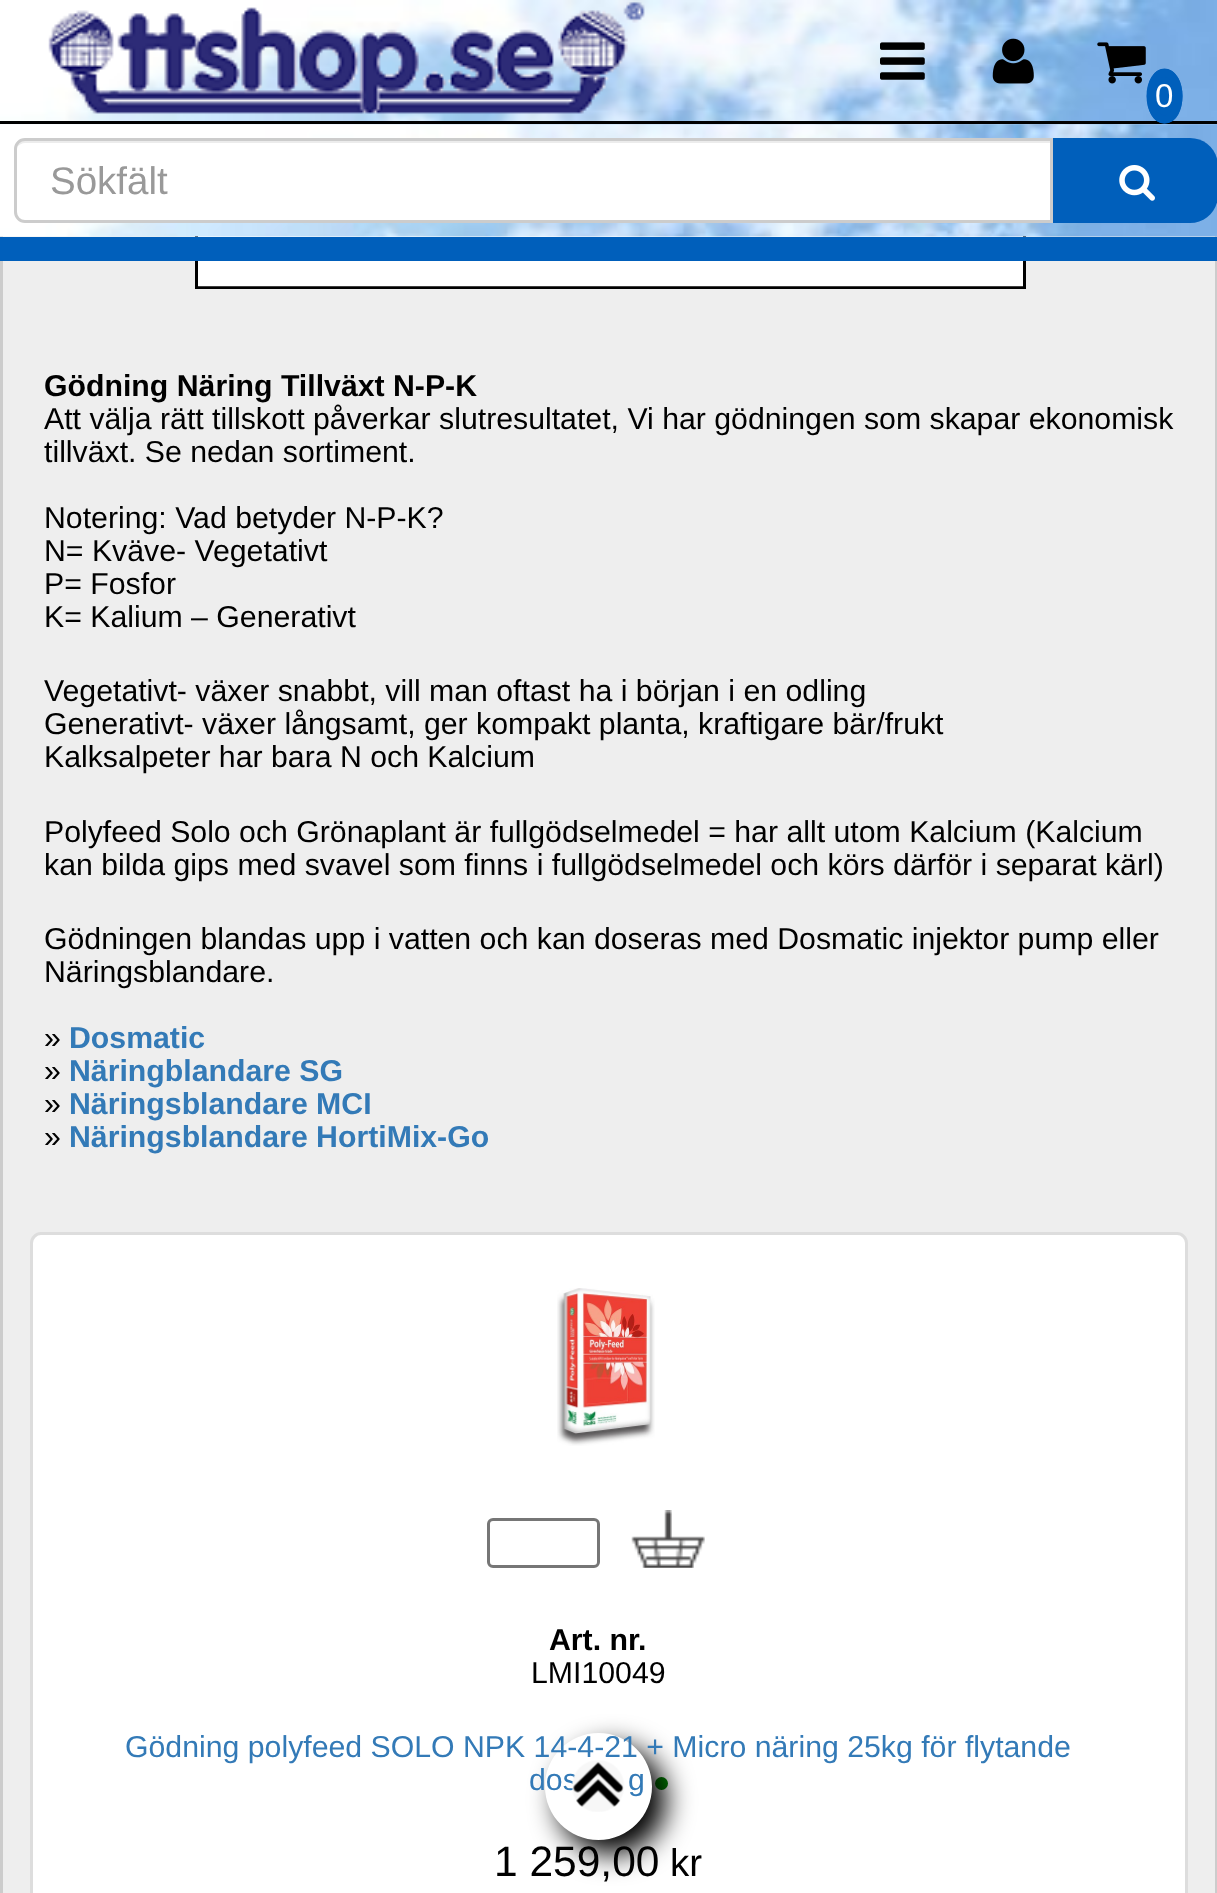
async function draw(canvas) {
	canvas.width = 1217;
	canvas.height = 1893;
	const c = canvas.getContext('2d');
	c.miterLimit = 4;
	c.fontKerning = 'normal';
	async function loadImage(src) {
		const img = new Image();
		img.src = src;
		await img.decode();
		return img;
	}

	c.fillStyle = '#eee';
	c.fillRect(0, 0, 1217, 1893);
	c.strokeStyle = '#ccc';
	c.lineWidth = 3;
	c.strokeRect(1.5, -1.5, 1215, 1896);
	c.strokeStyle = '#000';
	c.strokeRect(196.5, -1.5, 828, 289);
	c.drawImage(await loadImage('img1.png'), 0, 0, 1217, 121);
	c.drawImage(await loadImage('img2.png'), 48, 2, 597, 112);
	c.drawImage(await loadImage('img3.png'), 880, 42, 45, 38);
	c.drawImage(await loadImage('img4.png'), 992, 38, 42, 46);
	c.drawImage(await loadImage('img5.png'), 1097, 42, 49, 42);
	c.fillStyle = '#000';
	c.fillRect(0, 121, 1217, 3);
	c.fillStyle = '#005fbb';
	c.beginPath();
	c.ellipse(1164.5, 96, 18, 27.5, 0, 0, 2 * Math.PI);
	c.fill();
	c.beginPath();
	c.moveTo(1164.5, 73);
	c.bezierCurveTo(1183, 73, 1183, 119.5, 1164.5, 119.5);
	c.bezierCurveTo(1146.5, 119.5, 1146.5, 73, 1164.5, 73);
	c.closePath();
	c.strokeStyle = '#005fbb';
	c.lineWidth = 8.2;
	c.stroke();
	c.font = '33px Liberation Sans';
	c.fillStyle = '#fff';
	c.fillText('0', 1155, 107);
	c.drawImage(await loadImage('img9.png'), 198, 236, 825, 51);
	c.drawImage(await loadImage('img6.png'), 0, 124, 1217, 113);
	c.beginPath();
	c.roundRect(14, 138, 1039, 85, [11, 0, 0, 11]);
	c.fill();
	c.fillStyle = '#ececec';
	c.beginPath();
	c.moveTo(25, 143);
	c.lineTo(1050, 143);
	c.lineTo(1050, 220);
	c.lineTo(1051, 220);
	c.lineTo(1051, 140);
	c.lineTo(25, 140);
	c.bezierCurveTo(21, 140, 17, 143, 17, 147);
	c.bezierCurveTo(19, 145, 22, 143, 25, 143);
	c.closePath();
	c.fill();
	c.beginPath();
	c.roundRect(15.5, 139.5, 1036, 82, [9.5, 0, 0, 9.5]);
	c.strokeStyle = '#ccc';
	c.lineWidth = 3;
	c.stroke();
	c.font = '38.5px Liberation Sans';
	c.fillStyle = '#999';
	c.fillText('Sökfält', 50, 194);
	c.fillStyle = '#005fbb';
	c.beginPath();
	c.moveTo(1053, 138);
	c.lineTo(1190, 138);
	c.bezierCurveTo(1205.5, 138, 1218, 150.5, 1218, 166);
	c.lineTo(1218, 195);
	c.bezierCurveTo(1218, 210.5, 1205.5, 223, 1190, 223);
	c.lineTo(1053, 223);
	c.closePath();
	c.fill();
	c.drawImage(await loadImage('img7.png'), 1119, 165, 36, 36);
	c.fillRect(0, 237, 1217, 24);
	c.fillStyle = '#fff';
	c.beginPath();
	c.moveTo(41, 1233.5);
	c.lineTo(1177, 1233.5);
	c.bezierCurveTo(1182, 1233.5, 1186.5, 1238, 1186.5, 1243);
	c.lineTo(1186.5, 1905.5);
	c.lineTo(31.5, 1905.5);
	c.lineTo(31.5, 1243);
	c.bezierCurveTo(31.5, 1238, 36, 1233.5, 41, 1233.5);
	c.closePath();
	c.fill();
	c.strokeStyle = '#ddd';
	c.stroke();
	c.fillStyle = '#008000';
	c.beginPath();
	c.arc(661.5, 1783.5, 6.5, 0, 2 * Math.PI);
	c.fill();
	c.save();
	c.beginPath();
	c.moveTo(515, 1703);
	c.lineTo(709, 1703);
	c.lineTo(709, 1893);
	c.lineTo(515, 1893);
	c.closePath();
	c.moveTo(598.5, 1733);
	c.bezierCurveTo(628, 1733, 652, 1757, 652, 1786.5);
	c.bezierCurveTo(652, 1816, 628, 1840, 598.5, 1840);
	c.bezierCurveTo(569, 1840, 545, 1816, 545, 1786.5);
	c.bezierCurveTo(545, 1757, 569, 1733, 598.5, 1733);
	c.closePath();
	c.clip('evenodd');
	c.fillStyle = '#000';
	c.filter = 'blur(14px)';
	c.beginPath();
	c.roundRect(558, 1746, 108, 108, 54);
	c.fill();
	c.filter = 'none';
	c.restore();
	c.font = '30.25px Liberation Sans';
	c.fillStyle = '#337ab7';
	c.fillText('Gödning polyfeed SOLO NPK 14-4-21 + Micro näring 25kg för flytande', 125, 1757);
	c.fillText('dos', 529, 1790);
	c.drawImage(await loadImage('img8.png'), 571, 1760, 54, 52);
	c.font = 'bold 30.25px Liberation Sans';
	c.fillStyle = '#000';
	c.fillText('Gödning Näring Tillväxt N-P-K', 44, 396);
	c.font = '30.25px Liberation Sans';
	for (const [text, x, y] of [
		['Att välja rätt tillskott påverkar slutresultatet, Vi har gödningen som skapar ekonomisk', 44, 429],
		['tillväxt. Se nedan sortiment.', 44, 462],
		['Notering: Vad betyder N-P-K?', 44, 528],
		['N= Kväve- Vegetativt', 44, 561],
		['P= Fosfor', 44, 594],
		['K= Kalium – Generativt', 44, 627],
		['Vegetativt- växer snabbt, vill man oftast ha i början i en odling', 44, 701],
		['Generativt- växer långsamt, ger kompakt planta, kraftigare bär/frukt', 44, 734],
		['Kalksalpeter har bara N och Kalcium', 44, 767],
		['Polyfeed Solo och Grönaplant är fullgödselmedel = har allt utom Kalcium (Kalcium', 44, 842],
		['kan bilda gips med svavel som finns i fullgödselmedel och körs därför i separat kärl)', 44, 875],
		['Gödningen blandas upp i vatten och kan doseras med Dosmatic injektor pump eller', 44, 949],
		['Näringsblandare.', 44, 982],
		['»', 44, 1048],
	]) {
		c.fillText(text, x, y);
	}
	c.font = 'bold 30.25px Liberation Sans';
	c.fillStyle = '#337ab7';
	c.fillText('Dosmatic', 69, 1048);
	c.font = '30.25px Liberation Sans';
	c.fillStyle = '#000';
	c.fillText('»', 44, 1081);
	c.font = 'bold 30.25px Liberation Sans';
	c.fillStyle = '#337ab7';
	c.fillText('Näringblandare SG', 69, 1081);
	c.font = '30.25px Liberation Sans';
	c.fillStyle = '#000';
	c.fillText('»', 44, 1114);
	c.font = 'bold 30.25px Liberation Sans';
	c.fillStyle = '#337ab7';
	c.fillText('Näringsblandare MCI', 69, 1114);
	c.font = '30.25px Liberation Sans';
	c.fillStyle = '#000';
	c.fillText('»', 44, 1147);
	c.font = 'bold 30.25px Liberation Sans';
	c.fillStyle = '#337ab7';
	c.fillText('Näringsblandare HortiMix-Go', 69, 1147);
	c.drawImage(await loadImage('img10.png'), 557, 1288, 98, 158);
	c.beginPath();
	c.roundRect(488.5, 1519.5, 110, 47, 4.5);
	c.strokeStyle = '#767676';
	c.stroke();
	c.drawImage(await loadImage('img11.png'), 631, 1510, 74, 58);
	c.fillStyle = '#000';
	c.fillText('Art. nr.', 549, 1650);
	c.font = '30.25px Liberation Sans';
	c.fillText('LMI10049', 531, 1683);
	c.fillStyle = '#337ab7';
	c.fillText('g', 628, 1790);
	c.font = '42.5px Liberation Sans';
	c.fillStyle = '#000';
	c.fillText('1 259,00', 494, 1876);
	c.font = '38.5px Liberation Sans';
	c.fillText('kr', 670, 1876);
}

draw(document.querySelector('canvas'));
